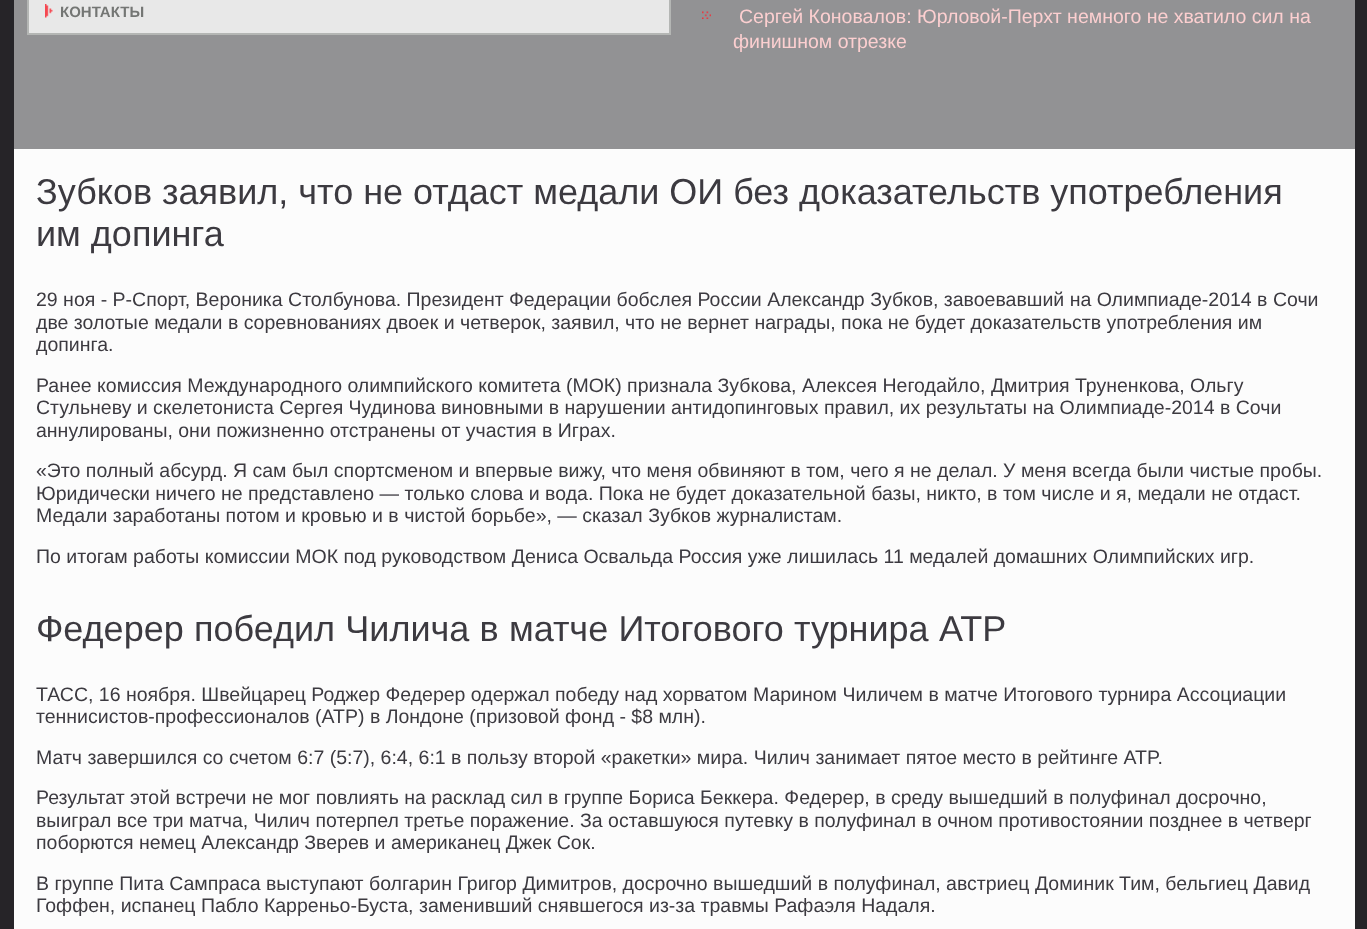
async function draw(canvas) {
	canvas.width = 1367;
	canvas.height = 929;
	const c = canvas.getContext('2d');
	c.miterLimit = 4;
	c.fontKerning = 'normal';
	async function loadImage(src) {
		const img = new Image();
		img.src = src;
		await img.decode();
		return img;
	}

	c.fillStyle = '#262428';
	c.fillRect(0, 0, 1367, 929);
	c.fillStyle = '#fcfcfc';
	c.fillRect(14, 149, 1341, 780);
	c.fillStyle = '#929294';
	c.fillRect(14, 0, 1341, 149);
	c.fillStyle = '#e8e8e8';
	c.beginPath();
	c.rect(28, -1, 642, 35);
	c.fill();
	c.strokeStyle = '#b4b6b4';
	c.lineWidth = 2;
	c.stroke();
	c.drawImage(await loadImage('img1.png'), 45, 4, 8, 14);
	c.font = 'bold 15px Liberation Sans';
	c.fillStyle = '#747674';
	c.fillText('КОНТАКТЫ', 60, 17);
	c.drawImage(await loadImage('img2.png'), 702, 11, 9, 8);
	c.font = '19.5px Liberation Sans';
	c.fillStyle = '#fccfd0';
	c.fillText('Сергей Коновалов: Юрловой-Перхт немного не хватило сил на', 739, 23);
	c.fillText('финишном отрезке', 733, 48);
	c.font = '36px Liberation Sans';
	c.fillStyle = '#3c3a40';
	c.fillText('Зубков заявил, что не отдаст медали ОИ без доказательств употребления', 36, 204);
	c.fillText('им допинга', 36, 246);
	c.font = '19.5px Liberation Sans';
	for (const [text, x, y] of [
		['29 ноя - Р-Спорт, Вероника Столбунова. Президент Федерации бобслея России Александр Зубков, завоевавший на Олимпиаде-2014 в Сочи', 36, 306],
		['две золотые медали в соревнованиях двоек и четверок, заявил, что не вернет награды, пока не будет доказательств употребления им', 36, 329],
		['допинга.', 36, 351],
		['Ранее комиссия Международного олимпийского комитета (МОК) признала Зубкова, Алексея Негодайло, Дмитрия Труненкова, Ольгу', 36, 392],
		['Стульневу и скелетониста Сергея Чудинова виновными в нарушении антидопинговых правил, их результаты на Олимпиаде-2014 в Сочи', 36, 414],
		['аннулированы, они пожизненно отстранены от участия в Играх.', 36, 437],
		['«Это полный абсурд. Я сам был спортсменом и впервые вижу, что меня обвиняют в том, чего я не делал. У меня всегда были чистые пробы.', 36, 477],
		['Юридически ничего не представлено — только слова и вода. Пока не будет доказательной базы, никто, в том числе и я, медали не отдаст.', 36, 500],
		['Медали заработаны потом и кровью и в чистой борьбе», — сказал Зубков журналистам.', 36, 522],
		['По итогам работы комиссии МОК под руководством Дениса Освальда Россия уже лишилась 11 медалей домашних Олимпийских игр.', 36, 563],
	]) {
		c.fillText(text, x, y);
	}
	c.wordSpacing = '0.25px';
	c.font = '36px Liberation Sans';
	c.fillText('Федерер победил Чилича в матче Итогового турнира ATP', 36, 641);
	c.wordSpacing = '0px';
	c.font = '19.5px Liberation Sans';
	for (const [text, x, y] of [
		['ТАСС, 16 ноября. Швейцарец Роджер Федерер одержал победу над хорватом Марином Чиличем в матче Итогового турнира Ассоциации', 36, 701],
		['теннисистов-профессионалов (ATP) в Лондоне (призовой фонд - $8 млн).', 36, 723],
		['Матч завершился со счетом 6:7 (5:7), 6:4, 6:1 в пользу второй «ракетки» мира. Чилич занимает пятое место в рейтинге ATP.', 36, 764],
		['Результат этой встречи не мог повлиять на расклад сил в группе Бориса Беккера. Федерер, в среду вышедший в полуфинал досрочно,', 36, 804],
		['выиграл все три матча, Чилич потерпел третье поражение. За оставшуюся путевку в полуфинал в очном противостоянии позднее в четверг', 36, 827],
		['поборются немец Александр Зверев и американец Джек Сок.', 36, 849],
		['В группе Пита Сампраса выступают болгарин Григор Димитров, досрочно вышедший в полуфинал, австриец Доминик Тим, бельгиец Давид', 36, 890],
		['Гоффен, испанец Пабло Карреньо-Буста, заменивший снявшегося из-за травмы Рафаэля Надаля.', 36, 912],
	]) {
		c.fillText(text, x, y);
	}
}

draw(document.querySelector('canvas'));
